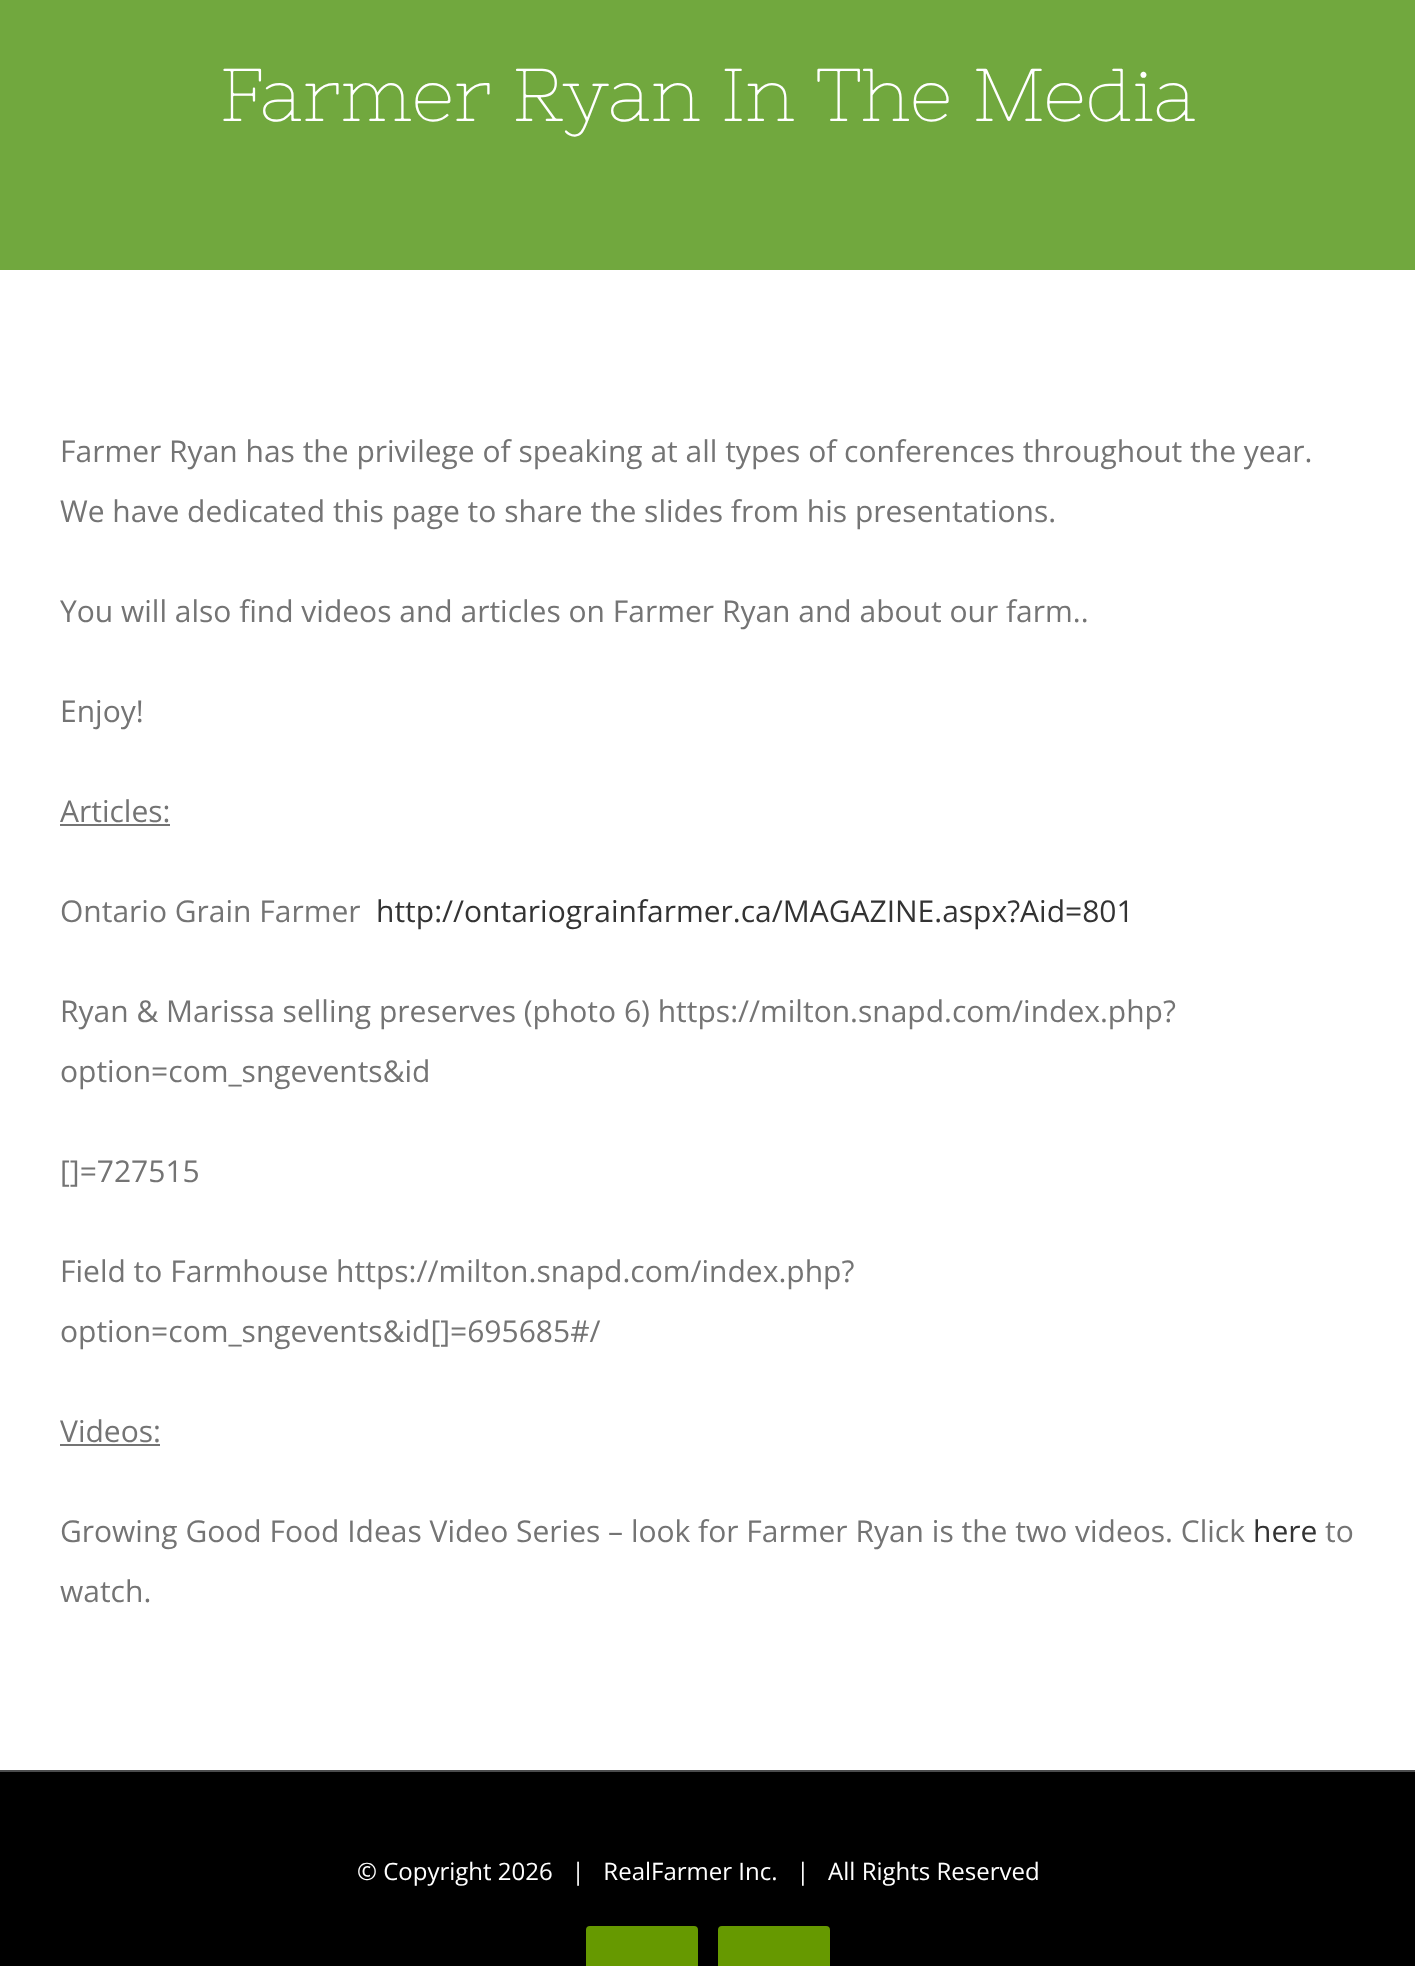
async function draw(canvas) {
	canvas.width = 1415;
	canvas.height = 1966;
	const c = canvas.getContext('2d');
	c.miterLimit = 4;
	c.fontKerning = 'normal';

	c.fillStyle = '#fff';
	c.fillRect(0, 0, 1415, 1966);
	c.fillStyle = '#71a83e';
	c.fillRect(0, 0, 1415, 270);
	c.font = '74.5px Nixie One';
	c.fillStyle = '#fff';
	c.fillText('Farmer Ryan In The Media', 220, 121);
	c.font = '30px Open Sans';
	c.fillStyle = '#747474';
	for (const [text, x, y] of [
		['Farmer Ryan has the privilege of speaking at all types of conferences throughout the year.', 60, 462],
		['We have dedicated this page to share the slides from his presentations.', 60, 522],
		['You will also find videos and articles on Farmer Ryan and about our farm..', 60, 622],
		['Enjoy!', 60, 722],
		['Articles:', 60, 822],
	]) {
		c.fillText(text, x, y);
	}
	c.fillRect(60, 824, 110, 2);
	c.fillText('Ontario Grain Farmer', 60, 922);
	c.fillStyle = '#333';
	c.fillText('http://ontariograinfarmer.ca/MAGAZINE.aspx?Aid=801', 376, 922);
	c.fillStyle = '#747474';
	for (const [text, x, y] of [
		['Ryan & Marissa selling preserves (photo 6) https://milton.snapd.com/index.php?', 60, 1022],
		['option=com_sngevents&id', 60, 1082],
		['[]=727515', 60, 1182],
		['Field to Farmhouse https://milton.snapd.com/index.php?', 60, 1282],
		['option=com_sngevents&id[]=695685#/', 60, 1342],
		['Videos:', 60, 1442],
	]) {
		c.fillText(text, x, y);
	}
	c.fillRect(60, 1444, 100, 2);
	c.fillText('Growing Good Food Ideas Video Series – look for Farmer Ryan is the two videos. Click', 60, 1542);
	c.fillStyle = '#333';
	c.fillText('here', 1253, 1542);
	c.fillStyle = '#747474';
	c.fillText('to', 1325, 1542);
	c.fillText('watch.', 60, 1602);
	c.fillStyle = '#000';
	c.fillRect(0, 1772, 1415, 194);
	c.fillStyle = '#4b4c4d';
	c.fillRect(0, 1770, 1415, 2);
	c.font = '24px Open Sans';
	c.fillStyle = '#fff';
	c.fillText('© Copyright 2026   |   RealFarmer Inc.   |   All Rights Reserved', 357, 1880);
	c.fillStyle = '#690';
	c.beginPath();
	c.roundRect(587, 1927, 110, 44, 3);
	c.fill();
	c.strokeStyle = '#690';
	c.lineWidth = 2;
	c.stroke();
	c.beginPath();
	c.roundRect(719, 1927, 110, 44, 3);
	c.fill();
	c.stroke();
}

draw(document.querySelector('canvas'));
